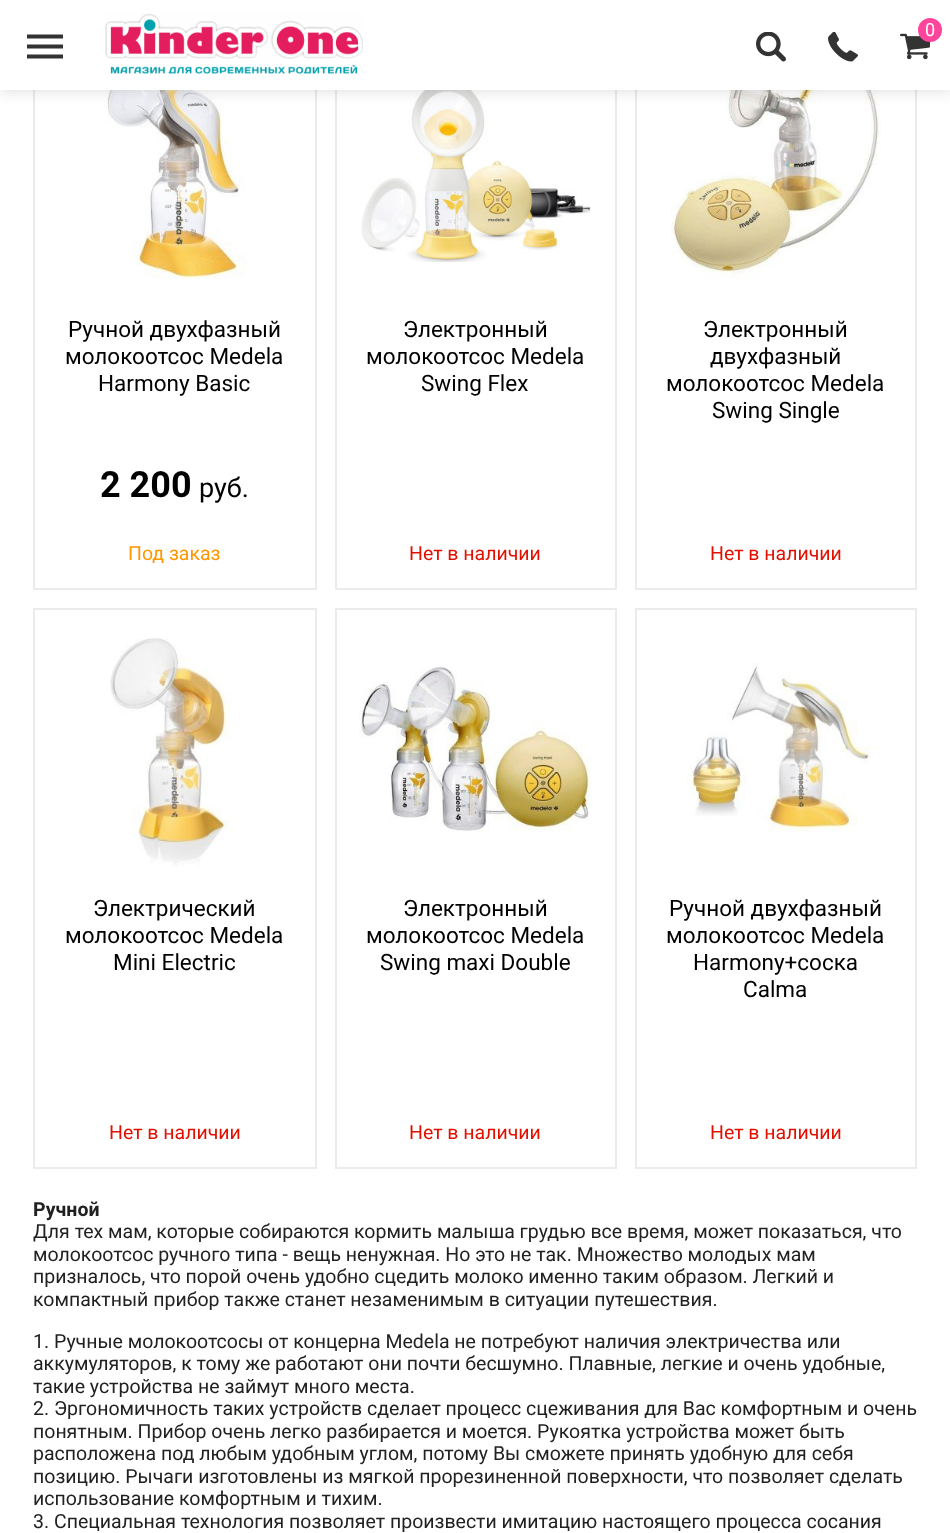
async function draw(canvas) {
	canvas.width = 950;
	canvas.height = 1533;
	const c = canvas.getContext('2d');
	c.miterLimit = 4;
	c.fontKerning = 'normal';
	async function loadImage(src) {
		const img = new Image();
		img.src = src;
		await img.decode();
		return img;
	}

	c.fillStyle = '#fff';
	c.fillRect(0, 0, 950, 1533);
	c.strokeStyle = '#ebebeb';
	c.lineWidth = 2;
	c.strokeRect(34, 30, 282, 559);
	c.drawImage(await loadImage('img5.png'), 107, 90, 139, 189);
	c.strokeRect(336, 30, 280, 559);
	c.drawImage(await loadImage('img6.png'), 361, 90, 230, 172);
	c.strokeRect(636, 30, 280, 559);
	c.drawImage(await loadImage('img7.png'), 671, 90, 211, 189);
	c.fillStyle = '#00000026';
	c.filter = 'blur(7.5px)';
	c.beginPath();
	c.rect(0, 0, 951, 90);
	c.fill();
	c.filter = 'none';
	c.fillStyle = '#fff';
	c.fillRect(0, 0, 950, 90);
	c.drawImage(await loadImage('img1.png'), 105, 13, 258, 61);
	c.drawImage(await loadImage('img2.png'), 900, 33, 30, 27);
	c.fillStyle = '#ff459b';
	c.beginPath();
	c.arc(930, 30, 12, 0, 2 * Math.PI);
	c.fill();
	c.font = '18px Roboto';
	c.fillStyle = '#fff';
	c.fillText('0', 925, 36);
	c.fillStyle = '#333';
	c.beginPath();
	c.moveTo(27, 54.5);
	c.lineTo(63, 54.5);
	c.lineTo(63, 58.5);
	c.lineTo(27, 58.5);
	c.closePath();
	c.moveTo(27, 44.5);
	c.lineTo(63, 44.5);
	c.lineTo(63, 48.5);
	c.lineTo(27, 48.5);
	c.closePath();
	c.moveTo(27, 34.5);
	c.lineTo(63, 34.5);
	c.lineTo(63, 38.5);
	c.lineTo(27, 38.5);
	c.closePath();
	c.fill();
	c.drawImage(await loadImage('img3.png'), 756, 32, 30, 30);
	c.drawImage(await loadImage('img4.png'), 828, 32, 30, 30);
	c.font = '22.5px Roboto';
	c.fillStyle = '#000';
	for (const [text, x, y] of [
		['Ручной двухфазный', 68, 337],
		['молокоотсос Medela', 65, 364],
		['Harmony Basic', 98, 391],
	]) {
		c.fillText(text, x, y);
	}
	c.font = 'bold 36px Roboto';
	c.fillText('2 200', 100, 497);
	c.font = '27px Roboto';
	c.fillText('руб.', 199, 497);
	c.font = '19.5px Roboto';
	c.fillStyle = '#ff9700';
	c.fillText('Под заказ', 128, 560);
	c.font = '22.5px Roboto';
	c.fillStyle = '#000';
	for (const [text, x, y] of [
		['Электронный', 403, 337],
		['молокоотсос Medela', 366, 364],
		['Swing Flex', 421, 391],
	]) {
		c.fillText(text, x, y);
	}
	c.font = '19.5px Roboto';
	c.fillStyle = '#e11000';
	c.fillText('Нет в наличии', 409, 560);
	c.font = '22.5px Roboto';
	c.fillStyle = '#000';
	for (const [text, x, y] of [
		['Электронный', 703, 337],
		['двухфазный', 710, 364],
		['молокоотсос Medela', 666, 391],
		['Swing Single', 712, 418],
	]) {
		c.fillText(text, x, y);
	}
	c.font = '19.5px Roboto';
	c.fillStyle = '#e11000';
	c.fillText('Нет в наличии', 710, 560);
	c.strokeRect(34, 609, 282, 559);
	c.drawImage(await loadImage('img8.png'), 110, 638, 123, 229);
	c.font = '22.5px Roboto';
	c.fillStyle = '#000';
	for (const [text, x, y] of [
		['Электрический', 93, 916],
		['молокоотсос Medela', 65, 943],
		['Mini Electric', 113, 970],
	]) {
		c.fillText(text, x, y);
	}
	c.font = '19.5px Roboto';
	c.fillStyle = '#e11000';
	c.fillText('Нет в наличии', 109, 1139);
	c.strokeRect(336, 609, 280, 559);
	c.drawImage(await loadImage('img9.png'), 359, 666, 234, 167);
	c.font = '22.5px Roboto';
	c.fillStyle = '#000';
	for (const [text, x, y] of [
		['Электронный', 403, 916],
		['молокоотсос Medela', 366, 943],
		['Swing maxi Double', 380, 970],
	]) {
		c.fillText(text, x, y);
	}
	c.font = '19.5px Roboto';
	c.fillStyle = '#e11000';
	c.fillText('Нет в наличии', 409, 1139);
	c.strokeRect(636, 609, 280, 559);
	c.drawImage(await loadImage('img10.png'), 686, 663, 185, 170);
	c.font = '22.5px Roboto';
	c.fillStyle = '#000';
	for (const [text, x, y] of [
		['Ручной двухфазный', 669, 916],
		['молокоотсос Medela', 666, 943],
		['Harmony+соска', 693, 970],
		['Calma', 743, 997],
	]) {
		c.fillText(text, x, y);
	}
	c.font = '19.5px Roboto';
	c.fillStyle = '#e11000';
	c.fillText('Нет в наличии', 710, 1139);
	c.font = 'bold 19.5px Roboto';
	c.fillStyle = '#212121';
	c.fillText('Ручной', 33, 1216);
	c.font = '19.5px Roboto';
	for (const [text, x, y] of [
		['Для тех мам, которые собираются кормить малыша грудью все время, может показаться, что', 33, 1238],
		['молокоотсос ручного типа - вещь ненужная. Но это не так. Множество молодых мам', 33, 1261],
		['призналось, что порой очень удобно сцедить молоко именно таким образом. Легкий и', 33, 1283],
		['компактный прибор также станет незаменимым в ситуации путешествия.', 33, 1306],
		['1. Ручные молокоотсосы от концерна Medela не потребуют наличия электричества или', 33, 1348],
		['аккумуляторов, к тому же работают они почти бесшумно. Плавные, легкие и очень удобные,', 33, 1370],
		['такие устройства не займут много места.', 33, 1393],
		['2. Эргономичность таких устройств сделает процесс сцеживания для Вас комфортным и очень', 33, 1415],
		['понятным. Прибор очень легко разбирается и моется. Рукоятка устройства может быть', 33, 1438],
		['расположена под любым удобным углом, потому Вы сможете принять удобную для себя', 33, 1460],
		['позицию. Рычаги изготовлены из мягкой прорезиненной поверхности, что позволяет сделать', 33, 1483],
		['использование комфортным и тихим.', 33, 1505],
		['3. Специальная технология позволяет произвести имитацию настоящего процесса сосания', 33, 1528],
	]) {
		c.fillText(text, x, y);
	}
}

draw(document.querySelector('canvas'));
